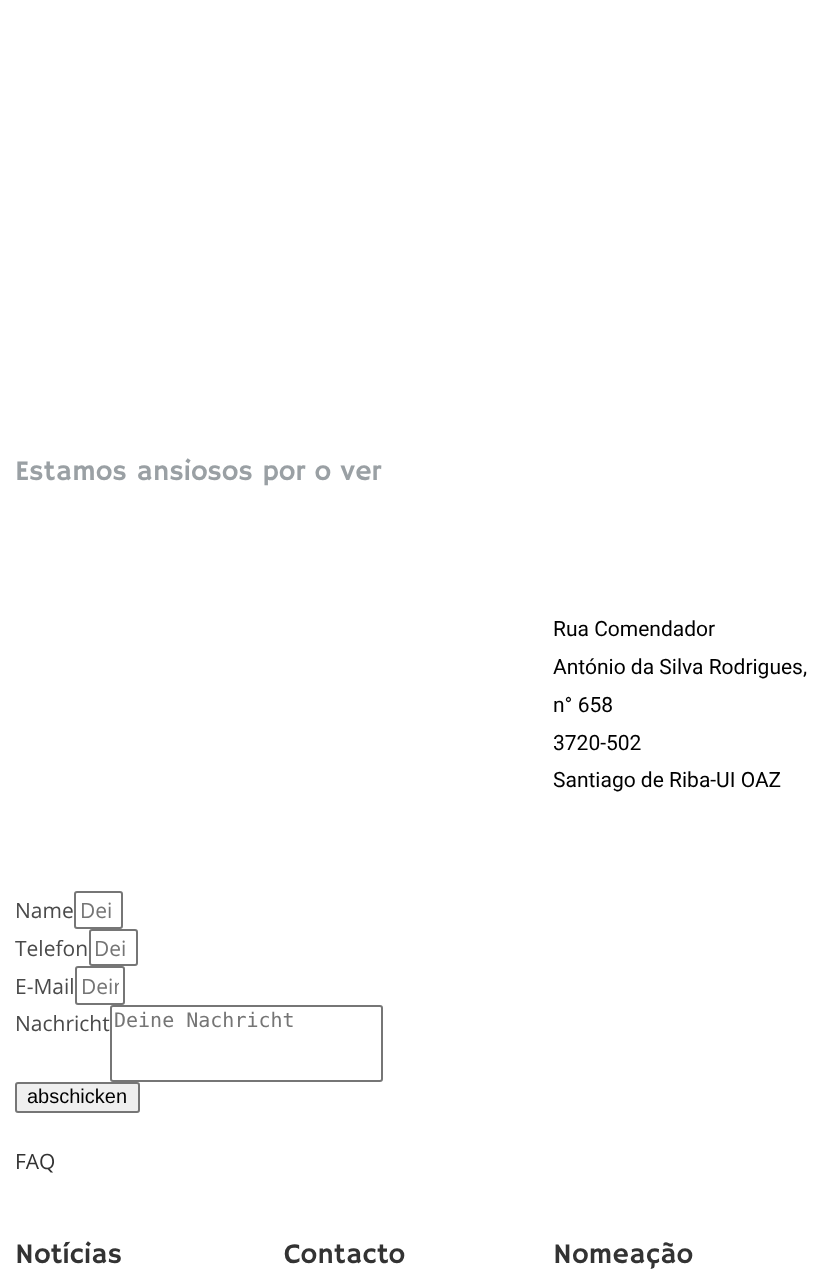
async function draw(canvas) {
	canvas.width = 836;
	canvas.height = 1273;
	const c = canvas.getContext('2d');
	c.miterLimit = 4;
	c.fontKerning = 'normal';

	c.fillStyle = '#fff';
	c.fillRect(0, 0, 836, 1273);
	c.font = '28.5px Hammersmith One';
	c.fillStyle = '#9aa0a4';
	c.fillText('Estamos ansiosos por o ver', 15, 480);
	c.font = '21px Roboto';
	c.fillStyle = '#000';
	for (const [text, x, y] of [
		['Rua Comendador', 553, 636],
		['António da Silva Rodrigues,', 553, 674],
		['n° 658', 553, 712],
		['3720-502', 553, 750],
		['Santiago de Riba-UI OAZ', 553, 787],
	]) {
		c.fillText(text, x, y);
	}
	c.font = '21px Open Sans';
	c.fillStyle = '#4a4a4a';
	c.fillText('Name', 15, 918);
	c.beginPath();
	c.roundRect(75, 892, 47, 36, 2);
	c.strokeStyle = '#767676';
	c.lineWidth = 2;
	c.stroke();
	c.fillStyle = '#757575';
	c.fillText('Dei', 80, 918);
	c.fillStyle = '#4a4a4a';
	c.fillText('Telefon', 15, 956);
	c.beginPath();
	c.roundRect(90, 930, 47, 35, 2);
	c.stroke();
	c.fillStyle = '#757575';
	c.fillText('Dei', 94, 956);
	c.fillStyle = '#4a4a4a';
	c.fillText('E-Mail', 15, 994);
	c.beginPath();
	c.roundRect(76, 967, 48, 37, 2);
	c.stroke();
	c.save();
	c.beginPath();
	c.rect(81, 972, 38, 29);
	c.clip();
	c.fillStyle = '#757575';
	c.fillText('Dein', 81, 994);
	c.restore();
	c.fillText('Nachricht', 15, 1031);
	c.beginPath();
	c.roundRect(111, 1006, 271, 75, 2);
	c.stroke();
	c.font = '20px DejaVu Sans Mono';
	c.fillStyle = '#757575';
	c.fillText('Deine Nachricht', 114, 1027);
	c.fillStyle = '#efefef';
	c.beginPath();
	c.roundRect(16, 1083, 123, 29, 2);
	c.fill();
	c.stroke();
	c.font = '20px Liberation Sans';
	c.fillStyle = '#000';
	c.fillText('abschicken', 27, 1103);
	c.font = '21px Open Sans';
	c.fillStyle = '#333';
	c.fillText('FAQ', 15, 1169);
	c.font = '28.5px Hammersmith One';
	for (const [text, x, y] of [
		['Notícias', 15, 1263],
		['Contacto', 284, 1263],
		['Nomeação', 553, 1263],
	]) {
		c.fillText(text, x, y);
	}
}

draw(document.querySelector('canvas'));
